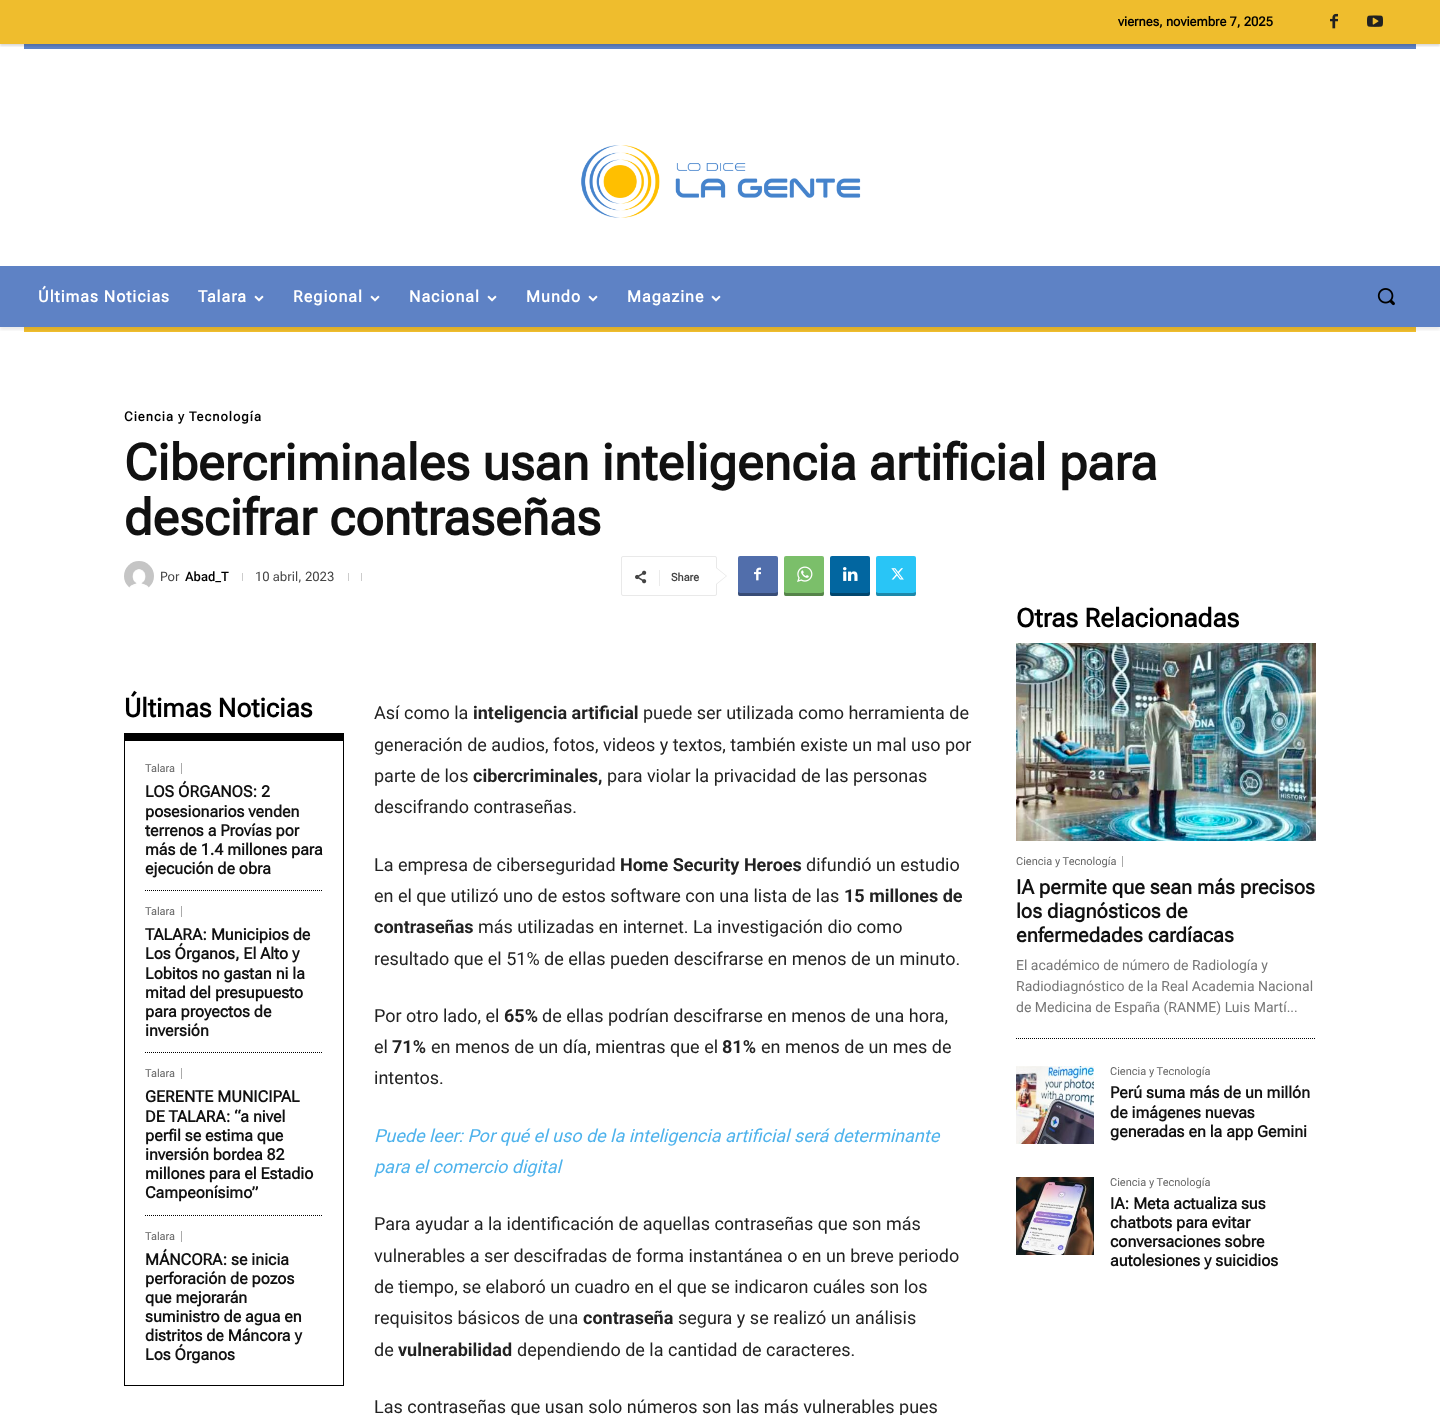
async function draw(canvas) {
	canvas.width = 1440;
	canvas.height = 1415;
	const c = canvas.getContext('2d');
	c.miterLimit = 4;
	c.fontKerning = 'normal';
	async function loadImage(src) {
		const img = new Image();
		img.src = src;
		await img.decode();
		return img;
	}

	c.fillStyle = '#fff';
	c.fillRect(0, 0, 1440, 1415);
	c.fillStyle = '#efbd2d';
	c.fillRect(0, 0, 1440, 44);
	c.drawImage(await loadImage('img1.png'), 1330, 13, 8, 16);
	c.drawImage(await loadImage('img2.png'), 1367, 15, 16, 12);
	c.fillStyle = '#5e82c5';
	c.fillRect(24, 44, 1392, 5);
	c.save();
	c.beginPath();
	c.rect(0, 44, 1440, 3);
	c.clip();
	c.fillStyle = '#0a000026';
	c.filter = 'blur(1px)';
	c.beginPath();
	c.rect(0, 2, 1440, 44);
	c.fill();
	c.filter = 'none';
	c.restore();
	c.font = 'bold 13px Roboto Flex';
	c.fillStyle = '#000';
	c.fillText('viernes, noviembre 7, 2025', 1118, 26);
	c.drawImage(await loadImage('img3.png'), 581, 145, 280, 73);
	c.fillStyle = '#5e82c5';
	c.fillRect(0, 266, 1440, 61);
	c.fillStyle = '#efbd2d';
	c.fillRect(24, 327, 1392, 5);
	c.save();
	c.beginPath();
	c.rect(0, 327, 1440, 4);
	c.clip();
	c.fillStyle = '#00000014';
	c.filter = 'blur(1.5px)';
	c.beginPath();
	c.rect(0, 269, 1440, 61);
	c.fill();
	c.filter = 'none';
	c.restore();
	c.letterSpacing = '1px';
	c.font = 'bold 16px Roboto Flex';
	c.fillStyle = '#fff';
	c.fillText('Últimas Noticias', 38, 302);
	c.fillText('Talara', 198, 302);
	c.drawImage(await loadImage('img4.png'), 254, 295, 10, 7);
	c.fillText('Regional', 293, 302);
	c.drawImage(await loadImage('img4.png'), 370, 295, 10, 7);
	c.fillText('Nacional', 409, 302);
	c.drawImage(await loadImage('img4.png'), 487, 295, 10, 7);
	c.fillText('Mundo', 526, 302);
	c.drawImage(await loadImage('img4.png'), 588, 295, 10, 7);
	c.fillText('Magazine', 627, 302);
	c.drawImage(await loadImage('img4.png'), 711, 295, 10, 7);
	c.drawImage(await loadImage('img5.png'), 1377, 288, 18, 18);
	c.font = 'bold 13px Roboto Flex';
	c.fillStyle = '#000';
	c.fillText('Ciencia y Tecnología', 124, 421);
	c.letterSpacing = '0px';
	c.font = 'bold 50px Roboto Flex';
	c.fillStyle = '#111';
	c.fillText('Cibercriminales usan inteligencia artificial para', 124, 480);
	c.fillText('descifrar contraseñas', 124, 535);
	c.drawImage(await loadImage('img6.png'), 124, 561, 30, 27);
	c.font = '13px Roboto Flex';
	c.fillStyle = '#444';
	c.fillText('Por', 160, 581);
	c.font = '500 13px Roboto';
	c.fillStyle = '#000';
	c.fillText('Abad_T', 185, 581);
	c.fillStyle = '#ccc';
	c.fillRect(242, 573, 1, 8);
	c.font = '13px Roboto Flex';
	c.fillStyle = '#444';
	c.fillText('10 abril, 2023', 255, 581);
	c.fillStyle = '#ccc';
	c.fillRect(348, 573, 1, 8);
	c.fillRect(361, 573, 1, 8);
	c.beginPath();
	c.roundRect(621.5, 556.5, 95, 39, 1.5);
	c.strokeStyle = '#e9e9e9';
	c.stroke();
	c.fillStyle = '#e9e9e9';
	c.beginPath();
	c.moveTo(716, 585);
	c.lineTo(716, 567);
	c.lineTo(727, 576);
	c.closePath();
	c.fill();
	c.drawImage(await loadImage('img7.png'), 635, 570, 12, 14);
	c.fillStyle = '#ebebeb';
	c.fillRect(659, 570, 1, 16);
	c.font = 'bold 11px Roboto Flex';
	c.fillStyle = '#444';
	c.fillText('Share', 671, 581);
	c.fillStyle = '#fff';
	c.beginPath();
	c.moveTo(716, 584);
	c.lineTo(716, 568);
	c.lineTo(726, 576);
	c.closePath();
	c.fill();
	c.fillStyle = '#516eab';
	c.beginPath();
	c.roundRect(738, 556, 40, 40, 2);
	c.fill();
	c.save();
	c.beginPath();
	c.rect(738, 556, 40, 40);
	c.clip();
	c.fillStyle = '#0000004f';
	c.beginPath();
	c.moveTo(738, 592);
	c.bezierCurveTo(738, 598, 740, 596, 746, 596);
	c.lineTo(770, 596);
	c.bezierCurveTo(777, 596, 778, 598, 778, 591);
	c.lineTo(778, 592);
	c.lineTo(775, 593);
	c.lineTo(740, 593);
	c.closePath();
	c.fill();
	c.restore();
	c.drawImage(await loadImage('img8.png'), 754, 567, 7, 14);
	c.fillStyle = '#7bbf6a';
	c.beginPath();
	c.roundRect(784, 556, 40, 40, 2);
	c.fill();
	c.save();
	c.beginPath();
	c.rect(784, 556, 40, 40);
	c.clip();
	c.fillStyle = '#0000004f';
	c.beginPath();
	c.moveTo(784, 592);
	c.bezierCurveTo(784, 598, 786, 596, 792, 596);
	c.lineTo(816, 596);
	c.bezierCurveTo(823, 596, 824, 598, 824, 591);
	c.lineTo(824, 592);
	c.lineTo(821, 593);
	c.lineTo(786, 593);
	c.closePath();
	c.fill();
	c.restore();
	c.drawImage(await loadImage('img9.png'), 797, 566, 16, 16);
	c.fillStyle = '#0266a0';
	c.beginPath();
	c.roundRect(830, 556, 40, 40, 2);
	c.fill();
	c.save();
	c.beginPath();
	c.rect(830, 556, 40, 40);
	c.clip();
	c.fillStyle = '#0000004f';
	c.beginPath();
	c.moveTo(830, 592);
	c.bezierCurveTo(830, 598, 832, 596, 838, 596);
	c.lineTo(862, 596);
	c.bezierCurveTo(869, 596, 870, 598, 870, 591);
	c.lineTo(870, 592);
	c.lineTo(867, 593);
	c.lineTo(832, 593);
	c.closePath();
	c.fill();
	c.restore();
	c.drawImage(await loadImage('img10.png'), 843, 567, 15, 14);
	c.fillStyle = '#29c5f6';
	c.beginPath();
	c.roundRect(876, 556, 40, 40, 2);
	c.fill();
	c.save();
	c.beginPath();
	c.rect(876, 556, 40, 40);
	c.clip();
	c.fillStyle = '#0000004f';
	c.beginPath();
	c.moveTo(876, 592);
	c.bezierCurveTo(876, 598, 878, 596, 884, 596);
	c.lineTo(908, 596);
	c.bezierCurveTo(915, 596, 916, 598, 916, 591);
	c.lineTo(916, 592);
	c.lineTo(913, 593);
	c.lineTo(878, 593);
	c.closePath();
	c.fill();
	c.restore();
	c.drawImage(await loadImage('img11.png'), 891, 568, 13, 12);
	c.font = 'bold 26px Roboto Flex';
	c.fillStyle = '#000';
	c.fillText('Últimas Noticias', 124, 717);
	for (const [x, y, w, h, color] of [
		[124, 733, 220, 8, '#000'],
		[343, 733, 1, 653, '#000'],
		[124, 1385, 220, 1, '#000'],
		[124, 733, 1, 653, '#000'],
		[181, 763, 1, 11, '#aaa'],
	]) {
		c.fillStyle = color;
		c.fillRect(x, y, w, h);
	}
	c.font = '11px Roboto';
	c.fillStyle = '#666';
	c.fillText('Talara', 145, 772);
	c.font = 'bold 16px Roboto Flex';
	c.fillStyle = '#111';
	for (const [text, x, y] of [
		['LOS ÓRGANOS: 2', 145, 797],
		['posesionarios venden', 145, 817],
		['terrenos a Provías por', 145, 836],
		['más de 1.4 millones para', 145, 855],
		['ejecución de obra', 145, 874],
	]) {
		c.fillText(text, x, y);
	}
	c.beginPath();
	c.moveTo(145, 890.5);
	c.lineTo(323, 890.5);
	c.strokeStyle = '#000';
	c.setLineDash([1, 1]);
	c.stroke();
	c.fillStyle = '#aaa';
	c.fillRect(181, 906, 1, 11);
	c.font = '11px Roboto';
	c.fillStyle = '#666';
	c.fillText('Talara', 145, 915);
	c.font = 'bold 16px Roboto Flex';
	c.fillStyle = '#111';
	for (const [text, x, y] of [
		['TALARA: Municipios de', 145, 940],
		['Los Órganos, El Alto y', 145, 959],
		['Lobitos no gastan ni la', 145, 979],
		['mitad del presupuesto', 145, 998],
		['para proyectos de', 145, 1017],
		['inversión', 145, 1036],
	]) {
		c.fillText(text, x, y);
	}
	c.beginPath();
	c.moveTo(145, 1052.5);
	c.lineTo(323, 1052.5);
	c.stroke();
	c.fillStyle = '#aaa';
	c.fillRect(181, 1068, 1, 11);
	c.font = '11px Roboto';
	c.fillStyle = '#666';
	c.fillText('Talara', 145, 1077);
	c.font = 'bold 16px Roboto Flex';
	c.fillStyle = '#111';
	for (const [text, x, y] of [
		['GERENTE MUNICIPAL', 145, 1102],
		['DE TALARA: “a nivel', 145, 1122],
		['perfil se estima que', 145, 1141],
		['inversión bordea 82', 145, 1160],
		['millones para el Estadio', 145, 1179],
		['Campeonísimo”', 145, 1198],
	]) {
		c.fillText(text, x, y);
	}
	c.beginPath();
	c.moveTo(145, 1215.5);
	c.lineTo(323, 1215.5);
	c.stroke();
	c.fillStyle = '#aaa';
	c.fillRect(181, 1231, 1, 11);
	c.font = '11px Roboto';
	c.fillStyle = '#666';
	c.fillText('Talara', 145, 1240);
	c.font = 'bold 16px Roboto Flex';
	c.fillStyle = '#111';
	for (const [text, x, y] of [
		['MÁNCORA: se inicia', 145, 1265],
		['perforación de pozos', 145, 1284],
		['que mejorarán', 145, 1303],
		['suministro de agua en', 145, 1322],
		['distritos de Máncora y', 145, 1341],
		['Los Órganos', 145, 1360],
	]) {
		c.fillText(text, x, y);
	}
	c.font = '18px Roboto';
	c.fillStyle = '#222';
	c.fillText('Así como la', 374, 719);
	c.font = 'bold 18px Roboto';
	c.fillText('inteligencia artificial', 473, 719);
	c.font = '18px Roboto';
	for (const [text, x, y] of [
		['puede ser utilizada como herramienta de', 643, 719],
		['generación de audios, fotos, videos y textos, también existe un mal uso por', 374, 751],
		['parte de los', 374, 782],
	]) {
		c.fillText(text, x, y);
	}
	c.font = 'bold 18px Roboto';
	c.fillText('cibercriminales,', 473, 782);
	c.font = '18px Roboto';
	for (const [text, x, y] of [
		['para violar la privacidad de las personas', 607, 782],
		['descifrando contraseñas.', 374, 813],
		['La empresa de ciberseguridad', 374, 871],
	]) {
		c.fillText(text, x, y);
	}
	c.font = 'bold 18px Roboto';
	c.fillText('Home Security Heroes', 620, 871);
	c.font = '18px Roboto';
	c.fillText('difundió un estudio', 806, 871);
	c.fillText('en el que utilizó uno de estos software con una lista de las', 374, 902);
	c.font = 'bold 18px Roboto';
	c.fillText('15 millones de', 844, 902);
	c.fillText('contraseñas', 374, 933);
	c.font = '18px Roboto';
	for (const [text, x, y] of [
		['más utilizadas en internet. La investigación dio como', 478, 933],
		['resultado que el 51% de ellas pueden descifrarse en menos de un minuto.', 374, 965],
		['Por otro lado, el', 374, 1022],
	]) {
		c.fillText(text, x, y);
	}
	c.font = 'bold 18px Roboto';
	c.fillText('65%', 504, 1022);
	c.font = '18px Roboto';
	c.fillText('de ellas podrían descifrarse en menos de una hora,', 542, 1022);
	c.fillText('el', 374, 1053);
	c.font = 'bold 18px Roboto';
	c.fillText('71%', 392, 1053);
	c.font = '18px Roboto';
	c.fillText('en menos de un día, mientras que el', 431, 1053);
	c.font = 'bold 18px Roboto';
	c.fillText('81%', 722, 1053);
	c.font = '18px Roboto';
	c.fillText('en menos de un mes de', 761, 1053);
	c.fillText('intentos.', 374, 1084);
	c.font = 'italic 18px Roboto';
	c.fillStyle = '#4db2ec';
	c.fillText('Puede leer: Por qué el uso de la inteligencia artificial será determinante', 374, 1142);
	c.fillText('para el comercio digital', 374, 1173);
	c.font = '18px Roboto';
	c.fillStyle = '#222';
	for (const [text, x, y] of [
		['Para ayudar a la identificación de aquellas contraseñas que son más', 374, 1230],
		['vulnerables a ser descifradas de forma instantánea o en un breve periodo', 374, 1262],
		['de tiempo, se elaboró un cuadro en el que se indicaron cuáles son los', 374, 1293],
		['requisitos básicos de una', 374, 1324],
	]) {
		c.fillText(text, x, y);
	}
	c.font = 'bold 18px Roboto';
	c.fillText('contraseña', 583, 1324);
	c.font = '18px Roboto';
	c.fillText('segura y se realizó un análisis', 678, 1324);
	c.fillText('de', 374, 1356);
	c.font = 'bold 18px Roboto';
	c.fillText('vulnerabilidad', 398, 1356);
	c.font = '18px Roboto';
	c.fillText('dependiendo de la cantidad de caracteres.', 517, 1356);
	c.fillText('Las contraseñas que usan solo números son las más vulnerables pues', 374, 1413);
	c.font = 'bold 26px Roboto Flex';
	c.fillStyle = '#000';
	c.fillText('Otras Relacionadas', 1016, 627);
	c.beginPath();
	c.moveTo(1016, 1038.5);
	c.lineTo(1316, 1038.5);
	c.stroke();
	c.drawImage(await loadImage('img12.png'), 1016, 643, 300, 198);
	c.fillStyle = '#aaa';
	c.fillRect(1122, 856, 1, 11);
	c.font = '11px Roboto';
	c.fillStyle = '#666';
	c.fillText('Ciencia y Tecnología', 1016, 865);
	c.font = 'bold 20px Roboto Flex';
	c.fillStyle = '#111';
	for (const [text, x, y] of [
		['IA permite que sean más precisos', 1016, 894],
		['los diagnósticos de', 1016, 918],
		['enfermedades cardíacas', 1016, 942],
	]) {
		c.fillText(text, x, y);
	}
	c.font = '14px Roboto';
	c.fillStyle = '#767676';
	for (const [text, x, y] of [
		['El académico de número de Radiología y', 1016, 970],
		['Radiodiagnóstico de la Real Academia Nacional', 1016, 991],
		['de Medicina de España (RANME) Luis Martí...', 1016, 1012],
	]) {
		c.fillText(text, x, y);
	}
	c.drawImage(await loadImage('img13.png'), 1016, 1066, 78, 78);
	c.font = '11px Roboto';
	c.fillStyle = '#666';
	c.fillText('Ciencia y Tecnología', 1110, 1075);
	c.font = 'bold 16px Roboto Flex';
	c.fillStyle = '#111';
	for (const [text, x, y] of [
		['Perú suma más de un millón', 1110, 1098],
		['de imágenes nuevas', 1110, 1118],
		['generadas en la app Gemini', 1110, 1137],
	]) {
		c.fillText(text, x, y);
	}
	c.drawImage(await loadImage('img14.png'), 1016, 1177, 78, 78);
	c.font = '11px Roboto';
	c.fillStyle = '#666';
	c.fillText('Ciencia y Tecnología', 1110, 1186);
	c.font = 'bold 16px Roboto Flex';
	c.fillStyle = '#111';
	for (const [text, x, y] of [
		['IA: Meta actualiza sus', 1110, 1209],
		['chatbots para evitar', 1110, 1228],
		['conversaciones sobre', 1110, 1247],
		['autolesiones y suicidios', 1110, 1266],
	]) {
		c.fillText(text, x, y);
	}
}

draw(document.querySelector('canvas'));
